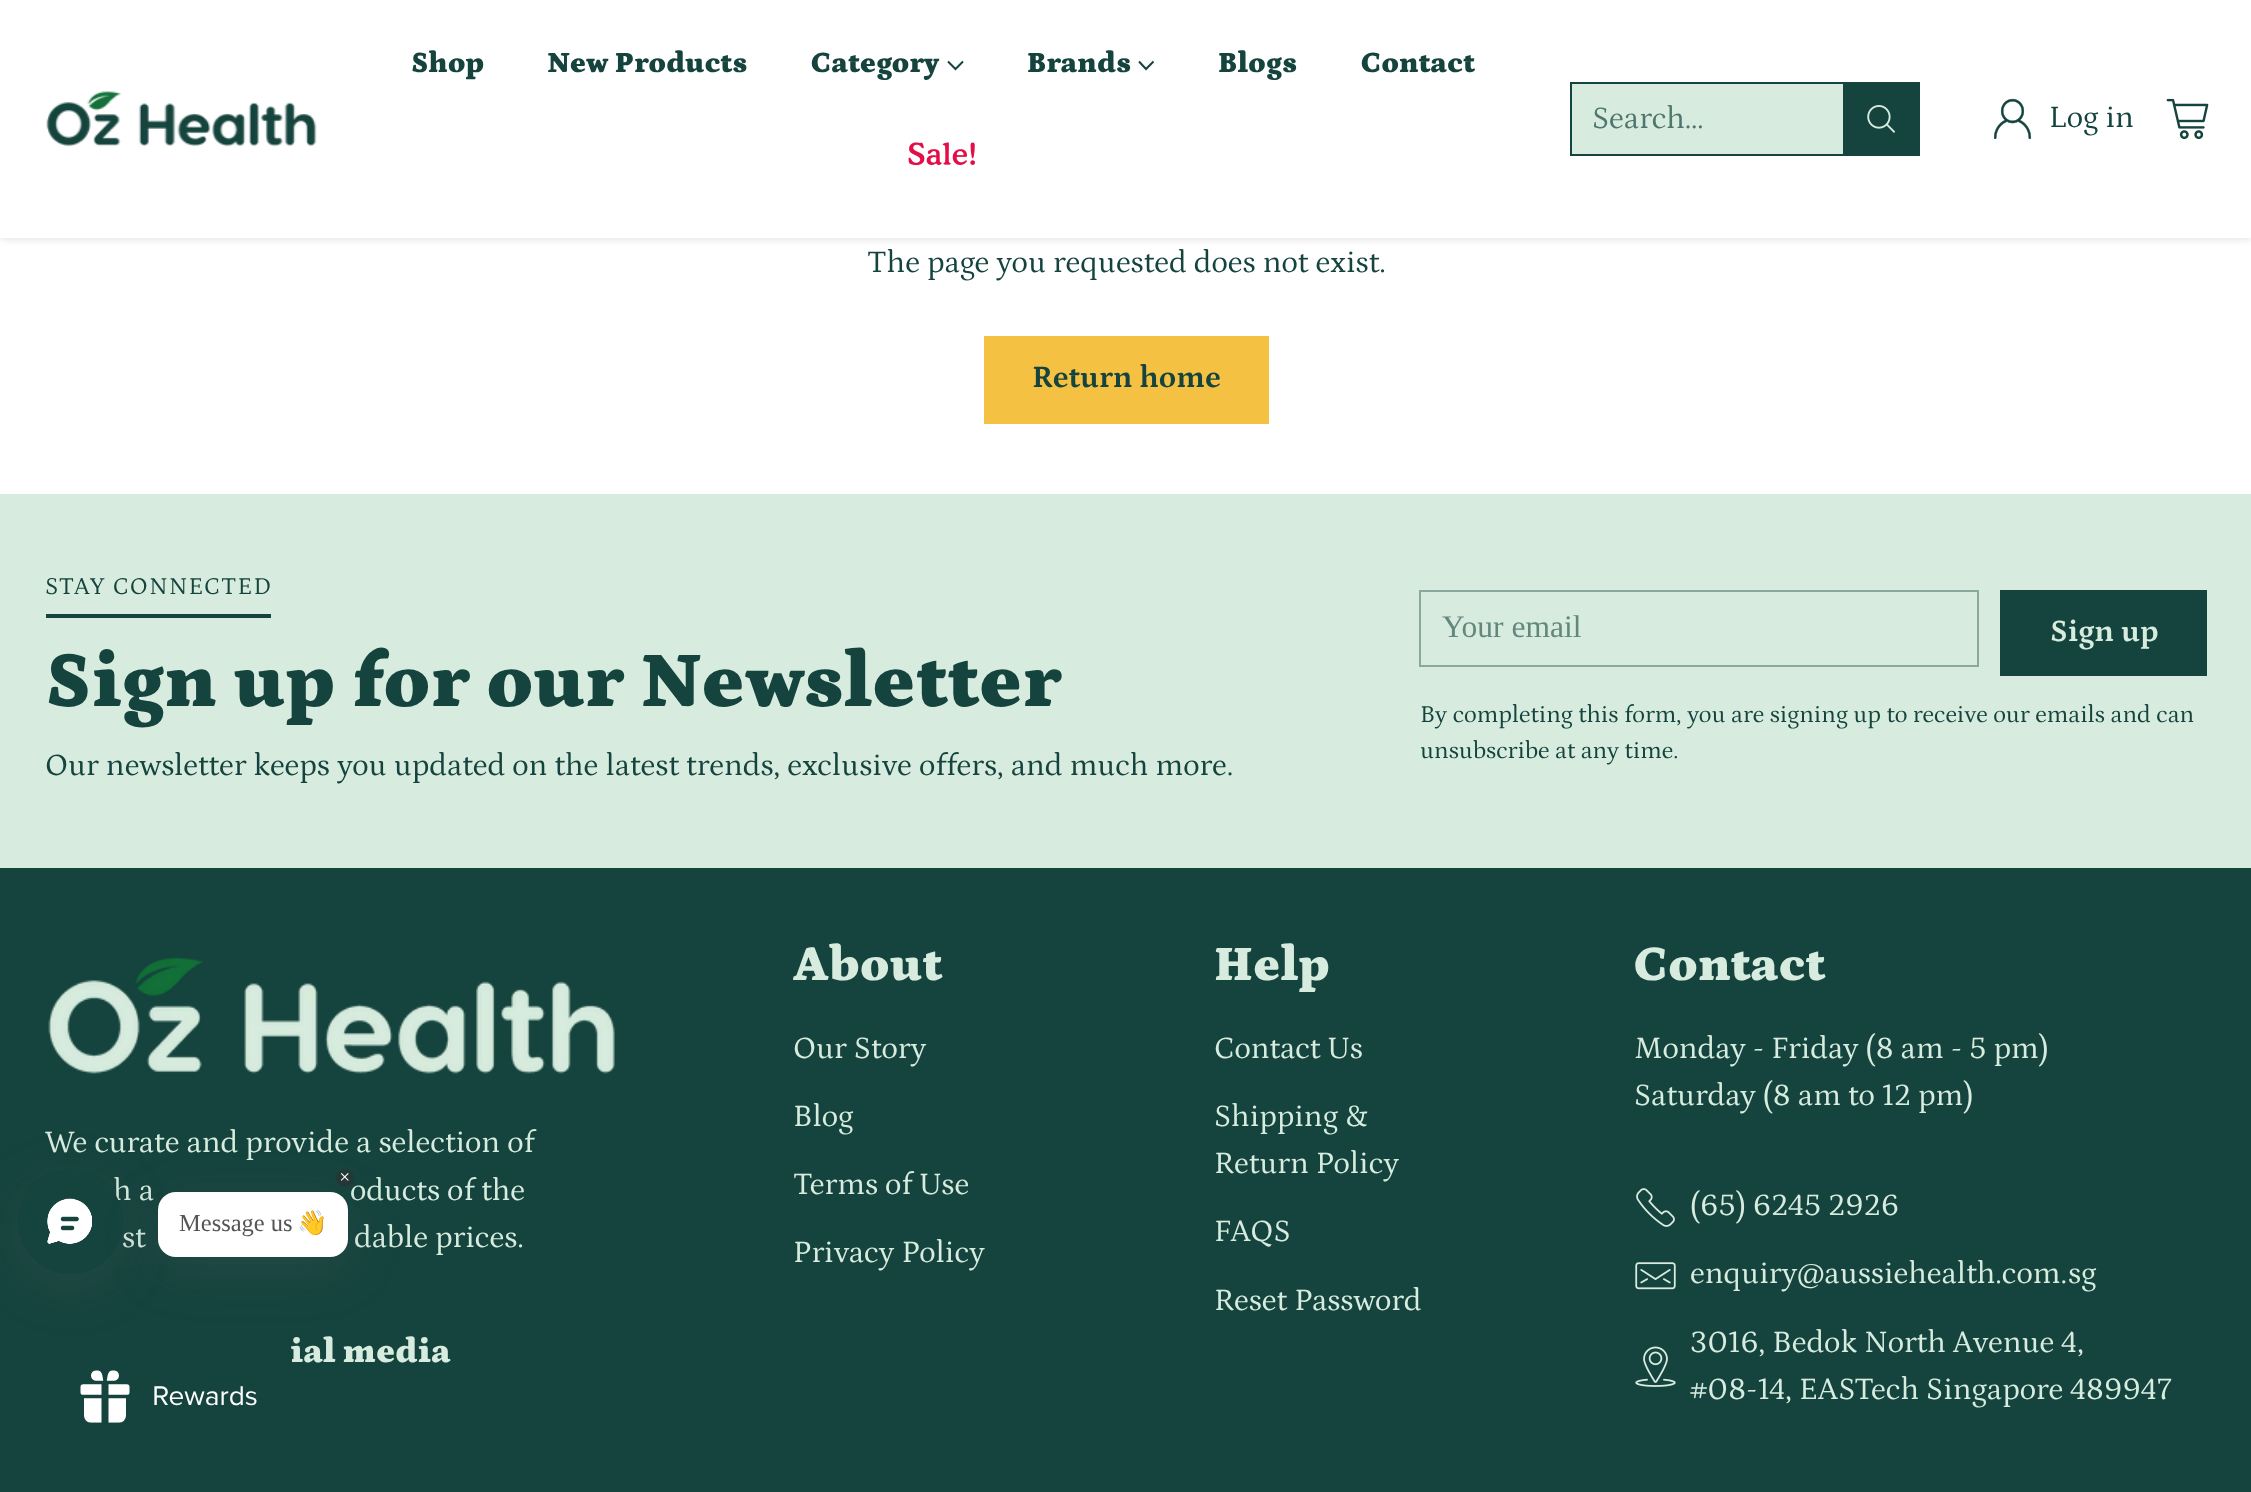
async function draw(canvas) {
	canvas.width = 2251;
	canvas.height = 1492;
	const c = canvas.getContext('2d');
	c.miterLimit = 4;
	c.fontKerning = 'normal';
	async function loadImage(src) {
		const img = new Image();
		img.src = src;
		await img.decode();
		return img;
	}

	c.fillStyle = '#fff';
	c.fillRect(0, 0, 2251, 1492);
	c.fillStyle = '#00000026';
	c.filter = 'blur(4.5px)';
	c.beginPath();
	c.rect(0, 0, 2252, 238);
	c.fill();
	c.filter = 'none';
	c.fillStyle = '#fff';
	c.fillRect(0, 0, 2251, 238);
	c.font = '900 29.75px Petrona';
	c.fillStyle = '#15433d';
	for (const [text, x, y] of [
		['Shop', 411, 72],
		['New Products', 547, 72],
		['Category', 811, 72],
	]) {
		c.fillText(text, x, y);
	}
	c.beginPath();
	c.moveTo(948, 61.5);
	c.lineTo(955.5, 69);
	c.lineTo(963, 61.5);
	c.strokeStyle = '#15433d';
	c.lineWidth = 2;
	c.stroke();
	c.fillText('Brands', 1027, 72);
	c.beginPath();
	c.moveTo(1139, 61.5);
	c.lineTo(1146, 69);
	c.lineTo(1153.5, 61.5);
	c.stroke();
	c.fillText('Blogs', 1218, 72);
	c.fillText('Contact', 1361, 72);
	c.drawImage(await loadImage('img1.png'), 908, 142, 67, 24);
	c.drawImage(await loadImage('img2.png'), 46, 91, 271, 56);
	c.strokeRect(1571, 83, 348, 72);
	c.fillStyle = '#d7ecdf';
	c.fillRect(1572, 84, 271, 70);
	c.font = '31.5px Petrona';
	c.fillStyle = '#4f766e';
	c.fillText('Search…', 1592, 128);
	c.fillStyle = '#15433d';
	c.fillRect(1843, 84, 75, 70);
	c.drawImage(await loadImage('img3.png'), 1867, 105, 28, 28);
	c.drawImage(await loadImage('img4.png'), 1993, 98, 39, 42);
	c.fillText('Log in', 2049, 127);
	c.drawImage(await loadImage('img5.png'), 2166, 98, 43, 42);
	c.fillText('The page you requested does not exist.', 867, 272);
	c.fillStyle = '#f4c142';
	c.fillRect(984, 336, 285, 88);
	c.font = 'bold 31.5px Petrona';
	c.fillStyle = '#15433d';
	c.fillText('Return home', 1032, 387);
	c.fillStyle = '#d7ecdf';
	c.fillRect(0, 494, 2251, 374);
	c.letterSpacing = '1.25px';
	c.font = '24.5px Petrona';
	c.fillStyle = '#15433d';
	c.fillText('STAY CONNECTED', 45, 594);
	c.fillRect(46, 614, 225, 4);
	c.letterSpacing = '0px';
	c.font = '900 79.6px Petrona';
	c.fillText('Sign up for our Newsletter', 45, 706);
	c.font = '31.5px Petrona';
	c.fillText('Our newsletter keeps you updated on the latest trends, exclusive offers, and much more.', 45, 775);
	c.strokeStyle = '#89a89e';
	c.strokeRect(1420, 591, 558, 75);
	c.font = '31.5px Liberation Serif';
	c.fillStyle = '#63877e';
	c.fillText('Your email', 1442, 637);
	c.fillStyle = '#15433d';
	c.fillRect(2000, 590, 207, 86);
	c.font = 'bold 31.5px Petrona';
	c.fillStyle = '#d7ecdf';
	c.fillText('Sign up', 2050, 641);
	c.font = '24.5px Petrona';
	c.fillStyle = '#15433d';
	c.fillText('By completing this form, you are signing up to receive our emails and can', 1420, 722);
	c.fillText('unsubscribe at any time.', 1420, 758);
	c.fillRect(0, 868, 2251, 624);
	c.drawImage(await loadImage('img6.png'), 48, 957, 567, 117);
	c.font = '31.5px Petrona';
	c.fillStyle = '#d7ecdf';
	for (const [text, x, y] of [
		['We curate and provide a selection of', 45, 1152],
		['h a', 113, 1200],
		['oducts of the', 350, 1200],
		['st', 122, 1247],
		['dable prices.', 354, 1247],
	]) {
		c.fillText(text, x, y);
	}
	c.font = '900 35px Petrona';
	c.fillText('ial media', 290, 1362);
	c.font = '900 50px Petrona';
	c.fillText('About', 793, 980);
	c.font = '31.5px Petrona';
	for (const [text, x, y] of [
		['Our Story', 793, 1058],
		['Blog', 793, 1126],
		['Terms of Use', 793, 1194],
		['Privacy Policy', 793, 1262],
	]) {
		c.fillText(text, x, y);
	}
	c.font = '900 50px Petrona';
	c.fillText('Help', 1214, 980);
	c.font = '31.5px Petrona';
	for (const [text, x, y] of [
		['Contact Us', 1214, 1058],
		['Shipping &', 1214, 1126],
		['Return Policy', 1214, 1173],
		['FAQS', 1214, 1241],
		['Reset Password', 1214, 1310],
	]) {
		c.fillText(text, x, y);
	}
	c.font = '900 50px Petrona';
	c.fillText('Contact', 1634, 980);
	c.font = '31.5px Petrona';
	c.fillText('Monday - Friday (8 am - 5 pm)', 1634, 1058);
	c.fillText('Saturday (8 am to 12 pm)', 1634, 1105);
	c.drawImage(await loadImage('img7.png'), 1636, 1188, 39, 39);
	c.fillText('(65) 6245 2926', 1690, 1215);
	c.drawImage(await loadImage('img8.png'), 1635, 1262, 41, 28);
	c.fillText('enquiry@aussiehealth.com.sg', 1690, 1283);
	c.drawImage(await loadImage('img9.png'), 1635, 1346, 41, 41);
	c.fillText('3016, Bedok North Avenue 4,', 1690, 1352);
	c.fillText('#08-14, EASTech Singapore 489947', 1690, 1399);
	c.fillStyle = '#64646f33';
	c.filter = 'blur(25.5px)';
	c.beginPath();
	c.roundRect(18, 1181, 105, 105, 52.5);
	c.fill();
	c.filter = 'none';
	c.fillStyle = '#15433d';
	c.beginPath();
	c.arc(70.5, 1221.5, 52.5, 0, 2 * Math.PI);
	c.fill();
	c.drawImage(await loadImage('img10.png'), 47, 1198, 45, 46);
	c.fillStyle = '#64646f33';
	c.filter = 'blur(25.5px)';
	c.beginPath();
	c.roundRect(158, 1204, 190, 65, 18);
	c.fill();
	c.filter = 'none';
	c.fillStyle = '#fff';
	c.beginPath();
	c.roundRect(158, 1192, 190, 65, 18);
	c.fill();
	c.fillStyle = '#3030308c';
	c.beginPath();
	c.arc(345, 1178, 9, 0, 2 * Math.PI);
	c.fill();
	c.drawImage(await loadImage('img11.png'), 341, 1173, 8, 8);
	c.font = '24.5px Liberation Serif';
	c.fillStyle = '#555';
	c.fillText('Message us', 179, 1231);
	c.font = '24.5px Noto Color Emoji';
	c.fillText('👋', 297, 1231);
	c.drawImage(await loadImage('img12.png'), 46, 1344, 246, 92);
}

draw(document.querySelector('canvas'));
